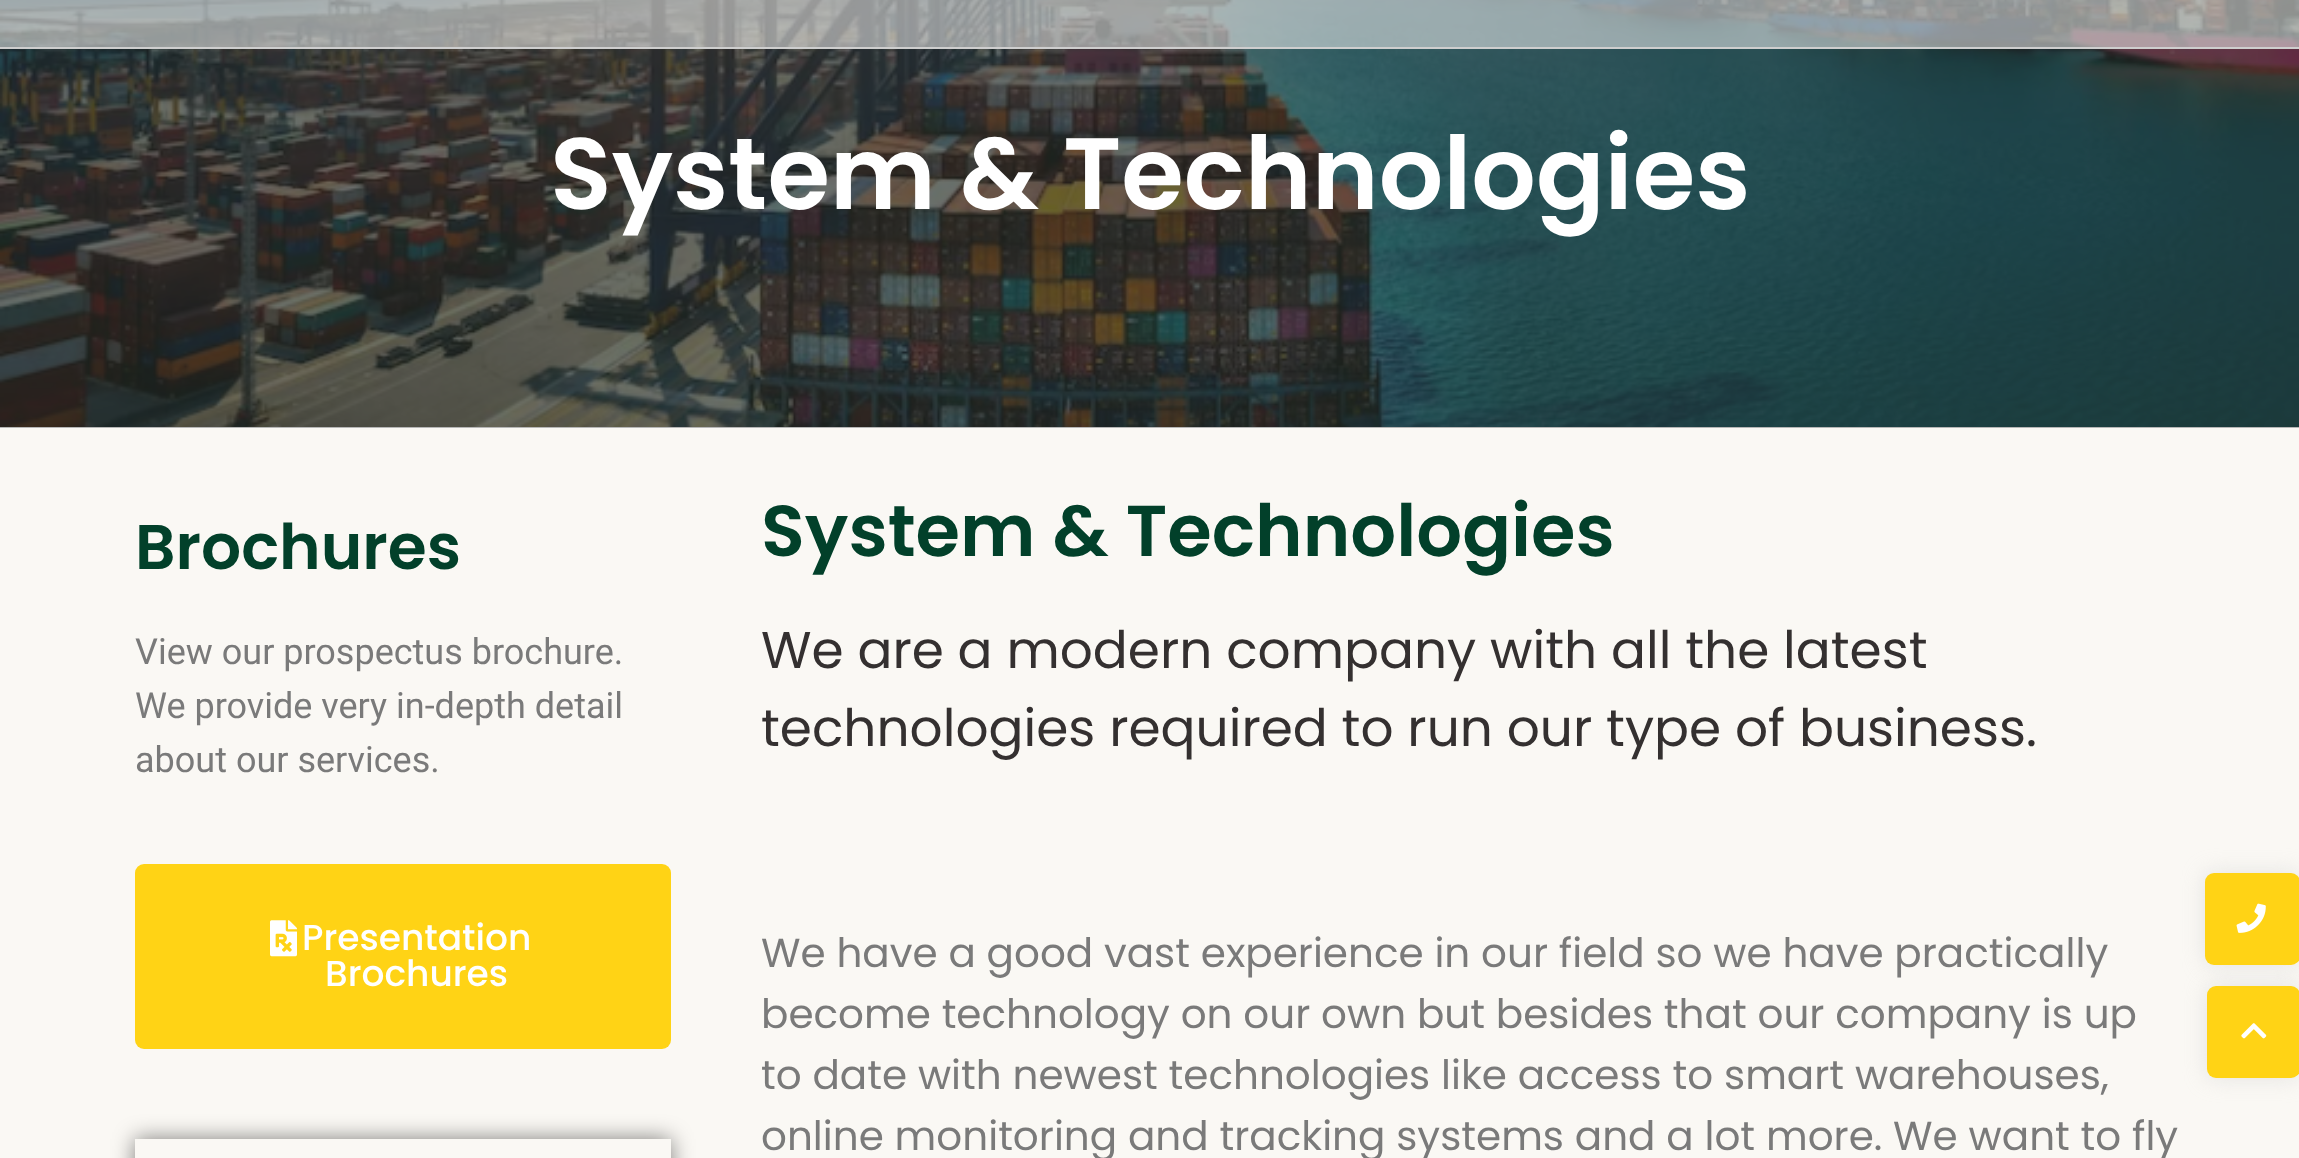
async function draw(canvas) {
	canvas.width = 2299;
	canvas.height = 1158;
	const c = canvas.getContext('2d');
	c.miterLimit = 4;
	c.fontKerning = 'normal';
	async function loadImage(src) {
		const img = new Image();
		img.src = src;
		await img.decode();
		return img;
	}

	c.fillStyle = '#faf8f4';
	c.fillRect(0, 0, 2299, 1158);
	c.drawImage(await loadImage('img1.png'), 0, 0, 2299, 427);
	for (const [x, y, w, h, color] of [
		[0, 0, 2299, 47, '#fafafa85'],
		[0, 47, 2299, 2, '#cecece'],
		[0, 427, 2299, 1, '#b6b6b6'],
	]) {
		c.fillStyle = color;
		c.fillRect(x, y, w, h);
	}
	c.font = '600 101.25px Poppins';
	c.fillStyle = '#fff';
	c.fillText('System & Technologies', 550, 209);
	c.font = '600 63px Poppins';
	c.fillStyle = '#02402a';
	c.fillText('Brochures', 135, 569);
	c.font = '36px Roboto';
	c.fillStyle = '#7a7a7a';
	for (const [text, x, y] of [
		['View our prospectus brochure.', 135, 664],
		['We provide very in-depth detail', 135, 718],
		['about our services.', 135, 772],
	]) {
		c.fillText(text, x, y);
	}
	c.fillStyle = '#ffd315';
	c.beginPath();
	c.roundRect(135, 864, 536, 185, 9);
	c.fill();
	c.drawImage(await loadImage('img2.png'), 270, 920, 27, 37);
	c.font = '500 36px Poppins';
	c.fillStyle = '#fff';
	c.fillText('Presentation', 302, 950);
	c.fillText('Brochures', 325, 986);
	c.save();
	c.beginPath();
	c.moveTo(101, 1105);
	c.lineTo(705, 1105);
	c.lineTo(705, 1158);
	c.lineTo(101, 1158);
	c.closePath();
	c.moveTo(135, 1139);
	c.lineTo(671, 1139);
	c.lineTo(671, 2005);
	c.lineTo(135, 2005);
	c.closePath();
	c.clip('evenodd');
	c.fillStyle = '#00000080';
	c.filter = 'blur(11px)';
	c.beginPath();
	c.rect(135, 1139, 536, 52);
	c.fill();
	c.filter = 'none';
	c.restore();
	c.font = '600 72px Poppins';
	c.fillStyle = '#02402a';
	c.fillText('System & Technologies', 761, 556);
	c.font = '51.75px Poppins';
	c.fillStyle = '#343030';
	c.fillText('We are a modern company with all the latest', 761, 668);
	c.fillText('technologies required to run our type of business.', 761, 746);
	c.font = '40.5px Poppins';
	c.fillStyle = '#7a7a7a';
	for (const [text, x, y] of [
		['We have a good vast experience in our field so we have practically', 761, 967],
		['become technology on our own but besides that our company is up', 761, 1028],
		['to date with newest technologies like access to smart warehouses,', 761, 1089],
		['online monitoring and tracking systems and a lot more. We want to fly', 761, 1150],
	]) {
		c.fillText(text, x, y);
	}
	c.fillStyle = '#cfcfcf80';
	c.filter = 'blur(11px)';
	c.beginPath();
	c.roundRect(2207, 986, 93, 92, 9);
	c.fill();
	c.filter = 'none';
	c.fillStyle = '#ffd315';
	c.beginPath();
	c.roundRect(2207, 986, 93, 92, 9);
	c.fill();
	c.fillStyle = '#cfcfcf80';
	c.filter = 'blur(11px)';
	c.beginPath();
	c.roundRect(2205, 873, 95, 92, 9);
	c.fill();
	c.filter = 'none';
	c.fillStyle = '#ffd315';
	c.beginPath();
	c.roundRect(2205, 873, 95, 92, 9);
	c.fill();
	c.drawImage(await loadImage('img3.png'), 2236, 903, 30, 30);
	c.drawImage(await loadImage('img4.png'), 2241, 1023, 26, 16);
}

draw(document.querySelector('canvas'));
